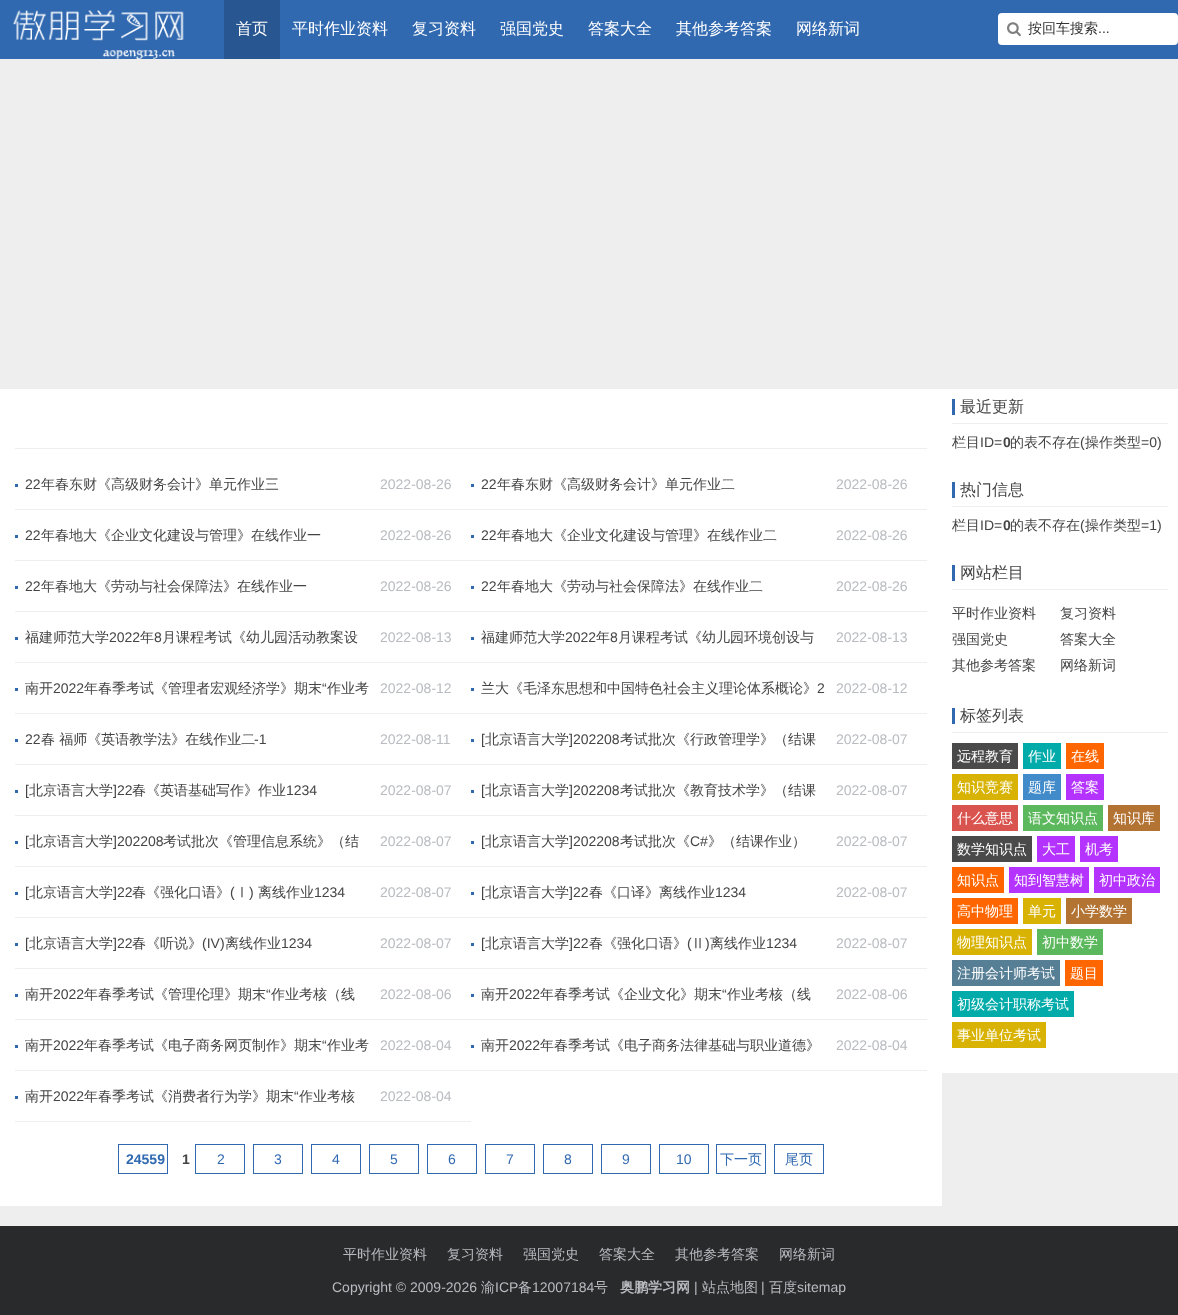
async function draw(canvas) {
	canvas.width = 1178;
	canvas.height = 1315;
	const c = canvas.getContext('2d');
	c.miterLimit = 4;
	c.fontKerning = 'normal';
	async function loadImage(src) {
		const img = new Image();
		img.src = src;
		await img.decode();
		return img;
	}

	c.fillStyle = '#eee';
	c.fillRect(0, 0, 1178, 1315);
	c.fillStyle = '#3169b0';
	c.fillRect(0, 0, 1178, 59);
	c.drawImage(await loadImage('img1.png'), 13, 10, 171, 49);
	c.fillStyle = '#285690';
	c.fillRect(224, 0, 56, 59);
	c.font = '500 16px WenQuanYi Zen Hei';
	c.fillStyle = '#fff';
	for (const [text, x, y] of [
		['首页', 236, 34],
		['平时作业资料', 292, 34],
		['复习资料', 412, 34],
		['强国党史', 500, 34],
		['答案大全', 588, 34],
		['其他参考答案', 676, 34],
		['网络新词', 796, 34],
	]) {
		c.fillText(text, x, y);
	}
	c.beginPath();
	c.roundRect(998, 13, 180, 32, 4);
	c.fill();
	c.drawImage(await loadImage('img2.png'), 1007, 22, 14, 15);
	c.font = '500 14px WenQuanYi Zen Hei';
	c.fillStyle = '#333';
	c.fillText('按回车搜索', 1028, 33);
	c.font = '14px Liberation Sans';
	c.fillText('...', 1098, 33);
	for (const [x, y, w, h, color] of [
		[0, 389, 942, 817, '#fff'],
		[15, 448, 912, 1, '#eee'],
		[15, 509, 912, 1, '#eee'],
		[15, 484, 3, 3, '#3169b0'],
	]) {
		c.fillStyle = color;
		c.fillRect(x, y, w, h);
	}
	c.fillStyle = '#444';
	c.fillText('22', 25, 489);
	c.font = '500 14px WenQuanYi Zen Hei';
	c.fillText('年春东财《高级财务会计》单元作业三', 41, 489);
	c.font = '14px Liberation Sans';
	c.fillStyle = '#b8bbc0';
	c.fillText('2022-08-26', 380, 489);
	c.fillStyle = '#3169b0';
	c.fillRect(471, 484, 3, 3);
	c.fillStyle = '#444';
	c.fillText('22', 481, 489);
	c.font = '500 14px WenQuanYi Zen Hei';
	c.fillText('年春东财《高级财务会计》单元作业二', 497, 489);
	c.font = '14px Liberation Sans';
	c.fillStyle = '#b8bbc0';
	c.fillText('2022-08-26', 836, 489);
	c.fillStyle = '#eee';
	c.fillRect(15, 560, 912, 1);
	c.fillStyle = '#3169b0';
	c.fillRect(15, 535, 3, 3);
	c.fillStyle = '#444';
	c.fillText('22', 25, 540);
	c.font = '500 14px WenQuanYi Zen Hei';
	c.fillText('年春地大《企业文化建设与管理》在线作业一', 41, 540);
	c.font = '14px Liberation Sans';
	c.fillStyle = '#b8bbc0';
	c.fillText('2022-08-26', 380, 540);
	c.fillStyle = '#3169b0';
	c.fillRect(471, 535, 3, 3);
	c.fillStyle = '#444';
	c.fillText('22', 481, 540);
	c.font = '500 14px WenQuanYi Zen Hei';
	c.fillText('年春地大《企业文化建设与管理》在线作业二', 497, 540);
	c.font = '14px Liberation Sans';
	c.fillStyle = '#b8bbc0';
	c.fillText('2022-08-26', 836, 540);
	c.fillStyle = '#eee';
	c.fillRect(15, 611, 912, 1);
	c.fillStyle = '#3169b0';
	c.fillRect(15, 586, 3, 3);
	c.fillStyle = '#444';
	c.fillText('22', 25, 591);
	c.font = '500 14px WenQuanYi Zen Hei';
	c.fillText('年春地大《劳动与社会保障法》在线作业一', 41, 591);
	c.font = '14px Liberation Sans';
	c.fillStyle = '#b8bbc0';
	c.fillText('2022-08-26', 380, 591);
	c.fillStyle = '#3169b0';
	c.fillRect(471, 586, 3, 3);
	c.fillStyle = '#444';
	c.fillText('22', 481, 591);
	c.font = '500 14px WenQuanYi Zen Hei';
	c.fillText('年春地大《劳动与社会保障法》在线作业二', 497, 591);
	c.font = '14px Liberation Sans';
	c.fillStyle = '#b8bbc0';
	c.fillText('2022-08-26', 836, 591);
	c.fillStyle = '#eee';
	c.fillRect(15, 662, 912, 1);
	c.fillStyle = '#3169b0';
	c.fillRect(15, 637, 3, 3);
	c.font = '500 14px WenQuanYi Zen Hei';
	c.fillStyle = '#444';
	c.fillText('福建师范大学', 25, 642);
	c.font = '14px Liberation Sans';
	c.fillText('2022', 109, 642);
	c.font = '500 14px WenQuanYi Zen Hei';
	c.fillText('年', 140, 642);
	c.font = '14px Liberation Sans';
	c.fillText('8', 154, 642);
	c.font = '500 14px WenQuanYi Zen Hei';
	c.fillText('月课程考试《幼儿园活动教案设', 162, 642);
	c.font = '14px Liberation Sans';
	c.fillStyle = '#b8bbc0';
	c.fillText('2022-08-13', 380, 642);
	c.fillStyle = '#3169b0';
	c.fillRect(471, 637, 3, 3);
	c.font = '500 14px WenQuanYi Zen Hei';
	c.fillStyle = '#444';
	c.fillText('福建师范大学', 481, 642);
	c.font = '14px Liberation Sans';
	c.fillText('2022', 565, 642);
	c.font = '500 14px WenQuanYi Zen Hei';
	c.fillText('年', 596, 642);
	c.font = '14px Liberation Sans';
	c.fillText('8', 610, 642);
	c.font = '500 14px WenQuanYi Zen Hei';
	c.fillText('月课程考试《幼儿园环境创设与', 618, 642);
	c.font = '14px Liberation Sans';
	c.fillStyle = '#b8bbc0';
	c.fillText('2022-08-13', 836, 642);
	c.fillStyle = '#eee';
	c.fillRect(15, 713, 912, 1);
	c.fillStyle = '#3169b0';
	c.fillRect(15, 688, 3, 3);
	c.font = '500 14px WenQuanYi Zen Hei';
	c.fillStyle = '#444';
	c.fillText('南开', 25, 693);
	c.font = '14px Liberation Sans';
	c.fillText('2022', 53, 693);
	c.font = '500 14px WenQuanYi Zen Hei';
	c.fillText('年春季考试《管理者宏观经济学》期末', 84, 693);
	c.font = '14px Liberation Sans';
	c.fillText('“', 322, 693);
	c.font = '500 14px WenQuanYi Zen Hei';
	c.fillText('作业考', 327, 693);
	c.font = '14px Liberation Sans';
	c.fillStyle = '#b8bbc0';
	c.fillText('2022-08-12', 380, 693);
	c.fillStyle = '#3169b0';
	c.fillRect(471, 688, 3, 3);
	c.font = '500 14px WenQuanYi Zen Hei';
	c.fillStyle = '#444';
	c.fillText('兰大《毛泽东思想和中国特色社会主义理论体系概论》', 481, 693);
	c.font = '14px Liberation Sans';
	c.fillText('2', 817, 693);
	c.fillStyle = '#b8bbc0';
	c.fillText('2022-08-12', 836, 693);
	c.fillStyle = '#eee';
	c.fillRect(15, 764, 912, 1);
	c.fillStyle = '#3169b0';
	c.fillRect(15, 739, 3, 3);
	c.fillStyle = '#444';
	c.fillText('22', 25, 744);
	c.font = '500 14px WenQuanYi Zen Hei';
	c.fillText('春 福师《英语教学法》在线作业二', 41, 744);
	c.font = '14px Liberation Sans';
	c.fillText('-1', 254, 744);
	c.fillStyle = '#b8bbc0';
	c.fillText('2022-08-11', 380, 744);
	c.fillStyle = '#3169b0';
	c.fillRect(471, 739, 3, 3);
	c.fillStyle = '#444';
	c.fillText('[', 481, 744);
	c.font = '500 14px WenQuanYi Zen Hei';
	c.fillText('北京语言大学', 485, 744);
	c.font = '14px Liberation Sans';
	c.fillText(']202208', 569, 744);
	c.font = '500 14px WenQuanYi Zen Hei';
	c.fillText('考试批次《行政管理学》（结课', 620, 744);
	c.font = '14px Liberation Sans';
	c.fillStyle = '#b8bbc0';
	c.fillText('2022-08-07', 836, 744);
	c.fillStyle = '#eee';
	c.fillRect(15, 815, 912, 1);
	c.fillStyle = '#3169b0';
	c.fillRect(15, 790, 3, 3);
	c.fillStyle = '#444';
	c.fillText('[', 25, 795);
	c.font = '500 14px WenQuanYi Zen Hei';
	c.fillText('北京语言大学', 29, 795);
	c.font = '14px Liberation Sans';
	c.fillText(']22', 113, 795);
	c.font = '500 14px WenQuanYi Zen Hei';
	c.fillText('春《英语基础写作》作业', 132, 795);
	c.font = '14px Liberation Sans';
	c.fillText('1234', 286, 795);
	c.fillStyle = '#b8bbc0';
	c.fillText('2022-08-07', 380, 795);
	c.fillStyle = '#3169b0';
	c.fillRect(471, 790, 3, 3);
	c.fillStyle = '#444';
	c.fillText('[', 481, 795);
	c.font = '500 14px WenQuanYi Zen Hei';
	c.fillText('北京语言大学', 485, 795);
	c.font = '14px Liberation Sans';
	c.fillText(']202208', 569, 795);
	c.font = '500 14px WenQuanYi Zen Hei';
	c.fillText('考试批次《教育技术学》（结课', 620, 795);
	c.font = '14px Liberation Sans';
	c.fillStyle = '#b8bbc0';
	c.fillText('2022-08-07', 836, 795);
	c.fillStyle = '#eee';
	c.fillRect(15, 866, 912, 1);
	c.fillStyle = '#3169b0';
	c.fillRect(15, 841, 3, 3);
	c.fillStyle = '#444';
	c.fillText('[', 25, 846);
	c.font = '500 14px WenQuanYi Zen Hei';
	c.fillText('北京语言大学', 29, 846);
	c.font = '14px Liberation Sans';
	c.fillText(']202208', 113, 846);
	c.font = '500 14px WenQuanYi Zen Hei';
	c.fillText('考试批次《管理信息系统》（结', 163, 846);
	c.font = '14px Liberation Sans';
	c.fillStyle = '#b8bbc0';
	c.fillText('2022-08-07', 380, 846);
	c.fillStyle = '#3169b0';
	c.fillRect(471, 841, 3, 3);
	c.fillStyle = '#444';
	c.fillText('[', 481, 846);
	c.font = '500 14px WenQuanYi Zen Hei';
	c.fillText('北京语言大学', 485, 846);
	c.font = '14px Liberation Sans';
	c.fillText(']202208', 569, 846);
	c.font = '500 14px WenQuanYi Zen Hei';
	c.fillText('考试批次《', 620, 846);
	c.font = '14px Liberation Sans';
	c.fillText('C#', 690, 846);
	c.font = '500 14px WenQuanYi Zen Hei';
	c.fillText('》（结课作业）', 708, 846);
	c.font = '14px Liberation Sans';
	c.fillStyle = '#b8bbc0';
	c.fillText('2022-08-07', 836, 846);
	c.fillStyle = '#eee';
	c.fillRect(15, 917, 912, 1);
	c.fillStyle = '#3169b0';
	c.fillRect(15, 892, 3, 3);
	c.fillStyle = '#444';
	c.fillText('[', 25, 897);
	c.font = '500 14px WenQuanYi Zen Hei';
	c.fillText('北京语言大学', 29, 897);
	c.font = '14px Liberation Sans';
	c.fillText(']22', 113, 897);
	c.font = '500 14px WenQuanYi Zen Hei';
	c.fillText('春《强化口语》', 132, 897);
	c.font = '14px Liberation Sans';
	c.fillText('(', 230, 897);
	c.font = '500 14px WenQuanYi Zen Hei';
	c.fillText('Ⅰ', 235, 897);
	c.font = '14px Liberation Sans';
	c.fillText(')', 249, 897);
	c.font = '500 14px WenQuanYi Zen Hei';
	c.fillText('离线作业', 258, 897);
	c.font = '14px Liberation Sans';
	c.fillText('1234', 314, 897);
	c.fillStyle = '#b8bbc0';
	c.fillText('2022-08-07', 380, 897);
	c.fillStyle = '#3169b0';
	c.fillRect(471, 892, 3, 3);
	c.fillStyle = '#444';
	c.fillText('[', 481, 897);
	c.font = '500 14px WenQuanYi Zen Hei';
	c.fillText('北京语言大学', 485, 897);
	c.font = '14px Liberation Sans';
	c.fillText(']22', 569, 897);
	c.font = '500 14px WenQuanYi Zen Hei';
	c.fillText('春《口译》离线作业', 589, 897);
	c.font = '14px Liberation Sans';
	c.fillText('1234', 715, 897);
	c.fillStyle = '#b8bbc0';
	c.fillText('2022-08-07', 836, 897);
	c.fillStyle = '#eee';
	c.fillRect(15, 968, 912, 1);
	c.fillStyle = '#3169b0';
	c.fillRect(15, 943, 3, 3);
	c.fillStyle = '#444';
	c.fillText('[', 25, 948);
	c.font = '500 14px WenQuanYi Zen Hei';
	c.fillText('北京语言大学', 29, 948);
	c.font = '14px Liberation Sans';
	c.fillText(']22', 113, 948);
	c.font = '500 14px WenQuanYi Zen Hei';
	c.fillText('春《听说》', 132, 948);
	c.font = '14px Liberation Sans';
	c.fillText('(IV)', 202, 948);
	c.font = '500 14px WenQuanYi Zen Hei';
	c.fillText('离线作业', 225, 948);
	c.font = '14px Liberation Sans';
	c.fillText('1234', 281, 948);
	c.fillStyle = '#b8bbc0';
	c.fillText('2022-08-07', 380, 948);
	c.fillStyle = '#3169b0';
	c.fillRect(471, 943, 3, 3);
	c.fillStyle = '#444';
	c.fillText('[', 481, 948);
	c.font = '500 14px WenQuanYi Zen Hei';
	c.fillText('北京语言大学', 485, 948);
	c.font = '14px Liberation Sans';
	c.fillText(']22', 569, 948);
	c.font = '500 14px WenQuanYi Zen Hei';
	c.fillText('春《强化口语》', 589, 948);
	c.font = '14px Liberation Sans';
	c.fillText('(', 687, 948);
	c.font = '500 14px WenQuanYi Zen Hei';
	c.fillText('Ⅱ', 691, 948);
	c.font = '14px Liberation Sans';
	c.fillText(')', 705, 948);
	c.font = '500 14px WenQuanYi Zen Hei';
	c.fillText('离线作业', 710, 948);
	c.font = '14px Liberation Sans';
	c.fillText('1234', 766, 948);
	c.fillStyle = '#b8bbc0';
	c.fillText('2022-08-07', 836, 948);
	c.fillStyle = '#eee';
	c.fillRect(15, 1019, 912, 1);
	c.fillStyle = '#3169b0';
	c.fillRect(15, 994, 3, 3);
	c.font = '500 14px WenQuanYi Zen Hei';
	c.fillStyle = '#444';
	c.fillText('南开', 25, 999);
	c.font = '14px Liberation Sans';
	c.fillText('2022', 53, 999);
	c.font = '500 14px WenQuanYi Zen Hei';
	c.fillText('年春季考试《管理伦理》期末', 84, 999);
	c.font = '14px Liberation Sans';
	c.fillText('“', 266, 999);
	c.font = '500 14px WenQuanYi Zen Hei';
	c.fillText('作业考核（线', 271, 999);
	c.font = '14px Liberation Sans';
	c.fillStyle = '#b8bbc0';
	c.fillText('2022-08-06', 380, 999);
	c.fillStyle = '#3169b0';
	c.fillRect(471, 994, 3, 3);
	c.font = '500 14px WenQuanYi Zen Hei';
	c.fillStyle = '#444';
	c.fillText('南开', 481, 999);
	c.font = '14px Liberation Sans';
	c.fillText('2022', 509, 999);
	c.font = '500 14px WenQuanYi Zen Hei';
	c.fillText('年春季考试《企业文化》期末', 540, 999);
	c.font = '14px Liberation Sans';
	c.fillText('“', 722, 999);
	c.font = '500 14px WenQuanYi Zen Hei';
	c.fillText('作业考核（线', 727, 999);
	c.font = '14px Liberation Sans';
	c.fillStyle = '#b8bbc0';
	c.fillText('2022-08-06', 836, 999);
	c.fillStyle = '#eee';
	c.fillRect(15, 1070, 912, 1);
	c.fillStyle = '#3169b0';
	c.fillRect(15, 1045, 3, 3);
	c.font = '500 14px WenQuanYi Zen Hei';
	c.fillStyle = '#444';
	c.fillText('南开', 25, 1050);
	c.font = '14px Liberation Sans';
	c.fillText('2022', 53, 1050);
	c.font = '500 14px WenQuanYi Zen Hei';
	c.fillText('年春季考试《电子商务网页制作》期末', 84, 1050);
	c.font = '14px Liberation Sans';
	c.fillText('“', 322, 1050);
	c.font = '500 14px WenQuanYi Zen Hei';
	c.fillText('作业考', 327, 1050);
	c.font = '14px Liberation Sans';
	c.fillStyle = '#b8bbc0';
	c.fillText('2022-08-04', 380, 1050);
	c.fillStyle = '#3169b0';
	c.fillRect(471, 1045, 3, 3);
	c.font = '500 14px WenQuanYi Zen Hei';
	c.fillStyle = '#444';
	c.fillText('南开', 481, 1050);
	c.font = '14px Liberation Sans';
	c.fillText('2022', 509, 1050);
	c.font = '500 14px WenQuanYi Zen Hei';
	c.fillText('年春季考试《电子商务法律基础与职业道德》', 540, 1050);
	c.font = '14px Liberation Sans';
	c.fillStyle = '#b8bbc0';
	c.fillText('2022-08-04', 836, 1050);
	c.fillStyle = '#eee';
	c.fillRect(15, 1121, 456, 1);
	c.fillStyle = '#3169b0';
	c.fillRect(15, 1096, 3, 3);
	c.font = '500 14px WenQuanYi Zen Hei';
	c.fillStyle = '#444';
	c.fillText('南开', 25, 1101);
	c.font = '14px Liberation Sans';
	c.fillText('2022', 53, 1101);
	c.font = '500 14px WenQuanYi Zen Hei';
	c.fillText('年春季考试《消费者行为学》期末', 84, 1101);
	c.font = '14px Liberation Sans';
	c.fillText('“', 294, 1101);
	c.font = '500 14px WenQuanYi Zen Hei';
	c.fillText('作业考核', 299, 1101);
	c.font = '14px Liberation Sans';
	c.fillStyle = '#b8bbc0';
	c.fillText('2022-08-04', 380, 1101);
	c.strokeStyle = '#3169b0';
	c.strokeRect(118.5, 1144.5, 49, 29);
	c.font = 'bold 14px Liberation Sans';
	c.fillStyle = '#3169b0';
	c.fillText('24559', 126, 1164);
	c.fillStyle = '#444';
	c.fillText('1', 182, 1164);
	c.strokeRect(195.5, 1144.5, 49, 29);
	c.font = '14px Liberation Sans';
	c.fillStyle = '#3169b0';
	c.fillText('2', 217, 1164);
	c.strokeRect(253.5, 1144.5, 49, 29);
	c.fillText('3', 274, 1164);
	c.strokeRect(311.5, 1144.5, 49, 29);
	c.fillText('4', 332, 1164);
	c.strokeRect(369.5, 1144.5, 49, 29);
	c.fillText('5', 390, 1164);
	c.strokeRect(427.5, 1144.5, 49, 29);
	c.fillText('6', 448, 1164);
	c.strokeRect(485.5, 1144.5, 49, 29);
	c.fillText('7', 506, 1164);
	c.strokeRect(543.5, 1144.5, 49, 29);
	c.fillText('8', 564, 1164);
	c.strokeRect(601.5, 1144.5, 49, 29);
	c.fillText('9', 622, 1164);
	c.strokeRect(659.5, 1144.5, 49, 29);
	c.fillText('10', 676, 1164);
	c.strokeRect(716.5, 1144.5, 49, 29);
	c.font = '500 14px WenQuanYi Zen Hei';
	c.fillText('下一页', 720, 1164);
	c.strokeRect(774.5, 1144.5, 49, 29);
	c.fillText('尾页', 785, 1164);
	for (const [x, y, w, h, color] of [
		[942, 389, 236, 684, '#fff'],
		[952, 423, 216, 1, '#eee'],
		[952, 399, 3, 16, '#3169b0'],
	]) {
		c.fillStyle = color;
		c.fillRect(x, y, w, h);
	}
	c.font = '500 16px WenQuanYi Zen Hei';
	c.fillStyle = '#444';
	c.fillText('最近更新', 960, 412);
	c.font = '500 14px WenQuanYi Zen Hei';
	c.fillText('栏目', 952, 447);
	c.font = '14px Liberation Sans';
	c.fillText('ID=', 980, 447);
	c.font = 'bold 14px Liberation Sans';
	c.fillText('0', 1003, 447);
	c.font = '500 14px WenQuanYi Zen Hei';
	c.fillText('的表不存在', 1010, 447);
	c.font = '14px Liberation Sans';
	c.fillText('(', 1080, 447);
	c.font = '500 14px WenQuanYi Zen Hei';
	c.fillText('操作类型', 1085, 447);
	c.font = '14px Liberation Sans';
	c.fillText('=0)', 1141, 447);
	c.fillStyle = '#eee';
	c.fillRect(952, 506, 216, 1);
	c.fillStyle = '#3169b0';
	c.fillRect(952, 482, 3, 16);
	c.font = '500 16px WenQuanYi Zen Hei';
	c.fillStyle = '#444';
	c.fillText('热门信息', 960, 495);
	c.font = '500 14px WenQuanYi Zen Hei';
	c.fillText('栏目', 952, 530);
	c.font = '14px Liberation Sans';
	c.fillText('ID=', 980, 530);
	c.font = 'bold 14px Liberation Sans';
	c.fillText('0', 1003, 530);
	c.font = '500 14px WenQuanYi Zen Hei';
	c.fillText('的表不存在', 1010, 530);
	c.font = '14px Liberation Sans';
	c.fillText('(', 1080, 530);
	c.font = '500 14px WenQuanYi Zen Hei';
	c.fillText('操作类型', 1085, 530);
	c.font = '14px Liberation Sans';
	c.fillText('=1)', 1141, 530);
	c.fillStyle = '#eee';
	c.fillRect(952, 589, 216, 1);
	c.fillStyle = '#3169b0';
	c.fillRect(952, 565, 3, 16);
	c.font = '500 16px WenQuanYi Zen Hei';
	c.fillStyle = '#444';
	c.fillText('网站栏目', 960, 578);
	c.font = '500 14px WenQuanYi Zen Hei';
	for (const [text, x, y] of [
		['平时作业资料', 952, 618],
		['复习资料', 1060, 618],
		['强国党史', 952, 644],
		['答案大全', 1060, 644],
		['其他参考答案', 952, 670],
		['网络新词', 1060, 670],
	]) {
		c.fillText(text, x, y);
	}
	c.fillStyle = '#eee';
	c.fillRect(952, 732, 216, 1);
	c.fillStyle = '#3169b0';
	c.fillRect(952, 708, 3, 16);
	c.font = '500 16px WenQuanYi Zen Hei';
	c.fillStyle = '#444';
	c.fillText('标签列表', 960, 721);
	c.fillStyle = '#4a4a4a';
	c.fillRect(952, 743, 66, 26);
	c.font = '500 14px WenQuanYi Zen Hei';
	c.fillStyle = '#fff';
	c.fillText('远程教育', 957, 761);
	c.fillStyle = '#00aba9';
	c.fillRect(1023, 743, 38, 26);
	c.fillStyle = '#fff';
	c.fillText('作业', 1028, 761);
	c.fillStyle = '#f60';
	c.fillRect(1066, 743, 38, 26);
	c.fillStyle = '#fff';
	c.fillText('在线', 1071, 761);
	c.fillStyle = '#d8b303';
	c.fillRect(952, 774, 66, 26);
	c.fillStyle = '#fff';
	c.fillText('知识竞赛', 957, 792);
	c.fillStyle = '#428bca';
	c.fillRect(1023, 774, 38, 26);
	c.fillStyle = '#fff';
	c.fillText('题库', 1028, 792);
	c.fillStyle = '#b433ff';
	c.fillRect(1066, 774, 38, 26);
	c.fillStyle = '#fff';
	c.fillText('答案', 1071, 792);
	c.fillStyle = '#d9534f';
	c.fillRect(952, 805, 66, 26);
	c.fillStyle = '#fff';
	c.fillText('什么意思', 957, 823);
	c.fillStyle = '#5cb85c';
	c.fillRect(1023, 805, 80, 26);
	c.fillStyle = '#fff';
	c.fillText('语文知识点', 1028, 823);
	c.fillStyle = '#b37333';
	c.fillRect(1108, 805, 52, 26);
	c.fillStyle = '#fff';
	c.fillText('知识库', 1113, 823);
	c.fillStyle = '#4a4a4a';
	c.fillRect(952, 836, 80, 26);
	c.fillStyle = '#fff';
	c.fillText('数学知识点', 957, 854);
	c.fillStyle = '#b433ff';
	c.fillRect(1037, 836, 38, 26);
	c.fillStyle = '#fff';
	c.fillText('大工', 1042, 854);
	c.fillStyle = '#b433ff';
	c.fillRect(1080, 836, 38, 26);
	c.fillStyle = '#fff';
	c.fillText('机考', 1085, 854);
	c.fillStyle = '#f60';
	c.fillRect(952, 867, 52, 26);
	c.fillStyle = '#fff';
	c.fillText('知识点', 957, 885);
	c.fillStyle = '#b433ff';
	c.fillRect(1009, 867, 80, 26);
	c.fillStyle = '#fff';
	c.fillText('知到智慧树', 1014, 885);
	c.fillStyle = '#b433ff';
	c.fillRect(1094, 867, 66, 26);
	c.fillStyle = '#fff';
	c.fillText('初中政治', 1099, 885);
	c.fillStyle = '#f60';
	c.fillRect(952, 898, 66, 26);
	c.fillStyle = '#fff';
	c.fillText('高中物理', 957, 916);
	c.fillStyle = '#d8b303';
	c.fillRect(1023, 898, 38, 26);
	c.fillStyle = '#fff';
	c.fillText('单元', 1028, 916);
	c.fillStyle = '#b37333';
	c.fillRect(1066, 898, 66, 26);
	c.fillStyle = '#fff';
	c.fillText('小学数学', 1071, 916);
	c.fillStyle = '#d8b303';
	c.fillRect(952, 929, 80, 26);
	c.fillStyle = '#fff';
	c.fillText('物理知识点', 957, 947);
	c.fillStyle = '#5cb85c';
	c.fillRect(1037, 929, 66, 26);
	c.fillStyle = '#fff';
	c.fillText('初中数学', 1042, 947);
	c.fillStyle = '#567e95';
	c.fillRect(952, 960, 108, 26);
	c.fillStyle = '#fff';
	c.fillText('注册会计师考试', 957, 978);
	c.fillStyle = '#f60';
	c.fillRect(1065, 960, 38, 26);
	c.fillStyle = '#fff';
	c.fillText('题目', 1070, 978);
	c.fillStyle = '#00aba9';
	c.fillRect(952, 991, 122, 26);
	c.fillStyle = '#fff';
	c.fillText('初级会计职称考试', 957, 1009);
	c.fillStyle = '#d8b303';
	c.fillRect(952, 1022, 94, 26);
	c.fillStyle = '#fff';
	c.fillText('事业单位考试', 957, 1040);
	c.fillStyle = '#292a2c';
	c.fillRect(0, 1226, 1178, 89);
	c.fillStyle = '#b8bbc0';
	for (const [text, x, y] of [
		['平时作业资料', 343, 1259],
		['复习资料', 447, 1259],
		['强国党史', 523, 1259],
		['答案大全', 599, 1259],
		['其他参考答案', 675, 1259],
		['网络新词', 779, 1259],
	]) {
		c.fillText(text, x, y);
	}
	c.font = '14px Liberation Sans';
	c.fillText('Copyright © 2009-2026', 332, 1292);
	c.font = '500 14px WenQuanYi Zen Hei';
	c.fillText('渝', 481, 1292);
	c.font = '14px Liberation Sans';
	c.fillText('ICP', 495, 1292);
	c.font = '500 14px WenQuanYi Zen Hei';
	c.fillText('备', 518, 1292);
	c.font = '14px Liberation Sans';
	c.fillText('12007184', 532, 1292);
	c.font = '500 14px WenQuanYi Zen Hei';
	c.fillText('号', 594, 1292);
	c.font = 'bold 14px WenQuanYi Zen Hei';
	c.fillText('奥鹏学习网', 620, 1292);
	c.font = '14px Liberation Sans';
	c.fillText('|', 694, 1292);
	c.font = '500 14px WenQuanYi Zen Hei';
	c.fillText('站点地图', 702, 1292);
	c.font = '14px Liberation Sans';
	c.fillText('|', 761, 1292);
	c.font = '500 14px WenQuanYi Zen Hei';
	c.fillText('百度', 769, 1292);
	c.font = '14px Liberation Sans';
	c.fillText('sitemap', 797, 1292);
}

draw(document.querySelector('canvas'));
